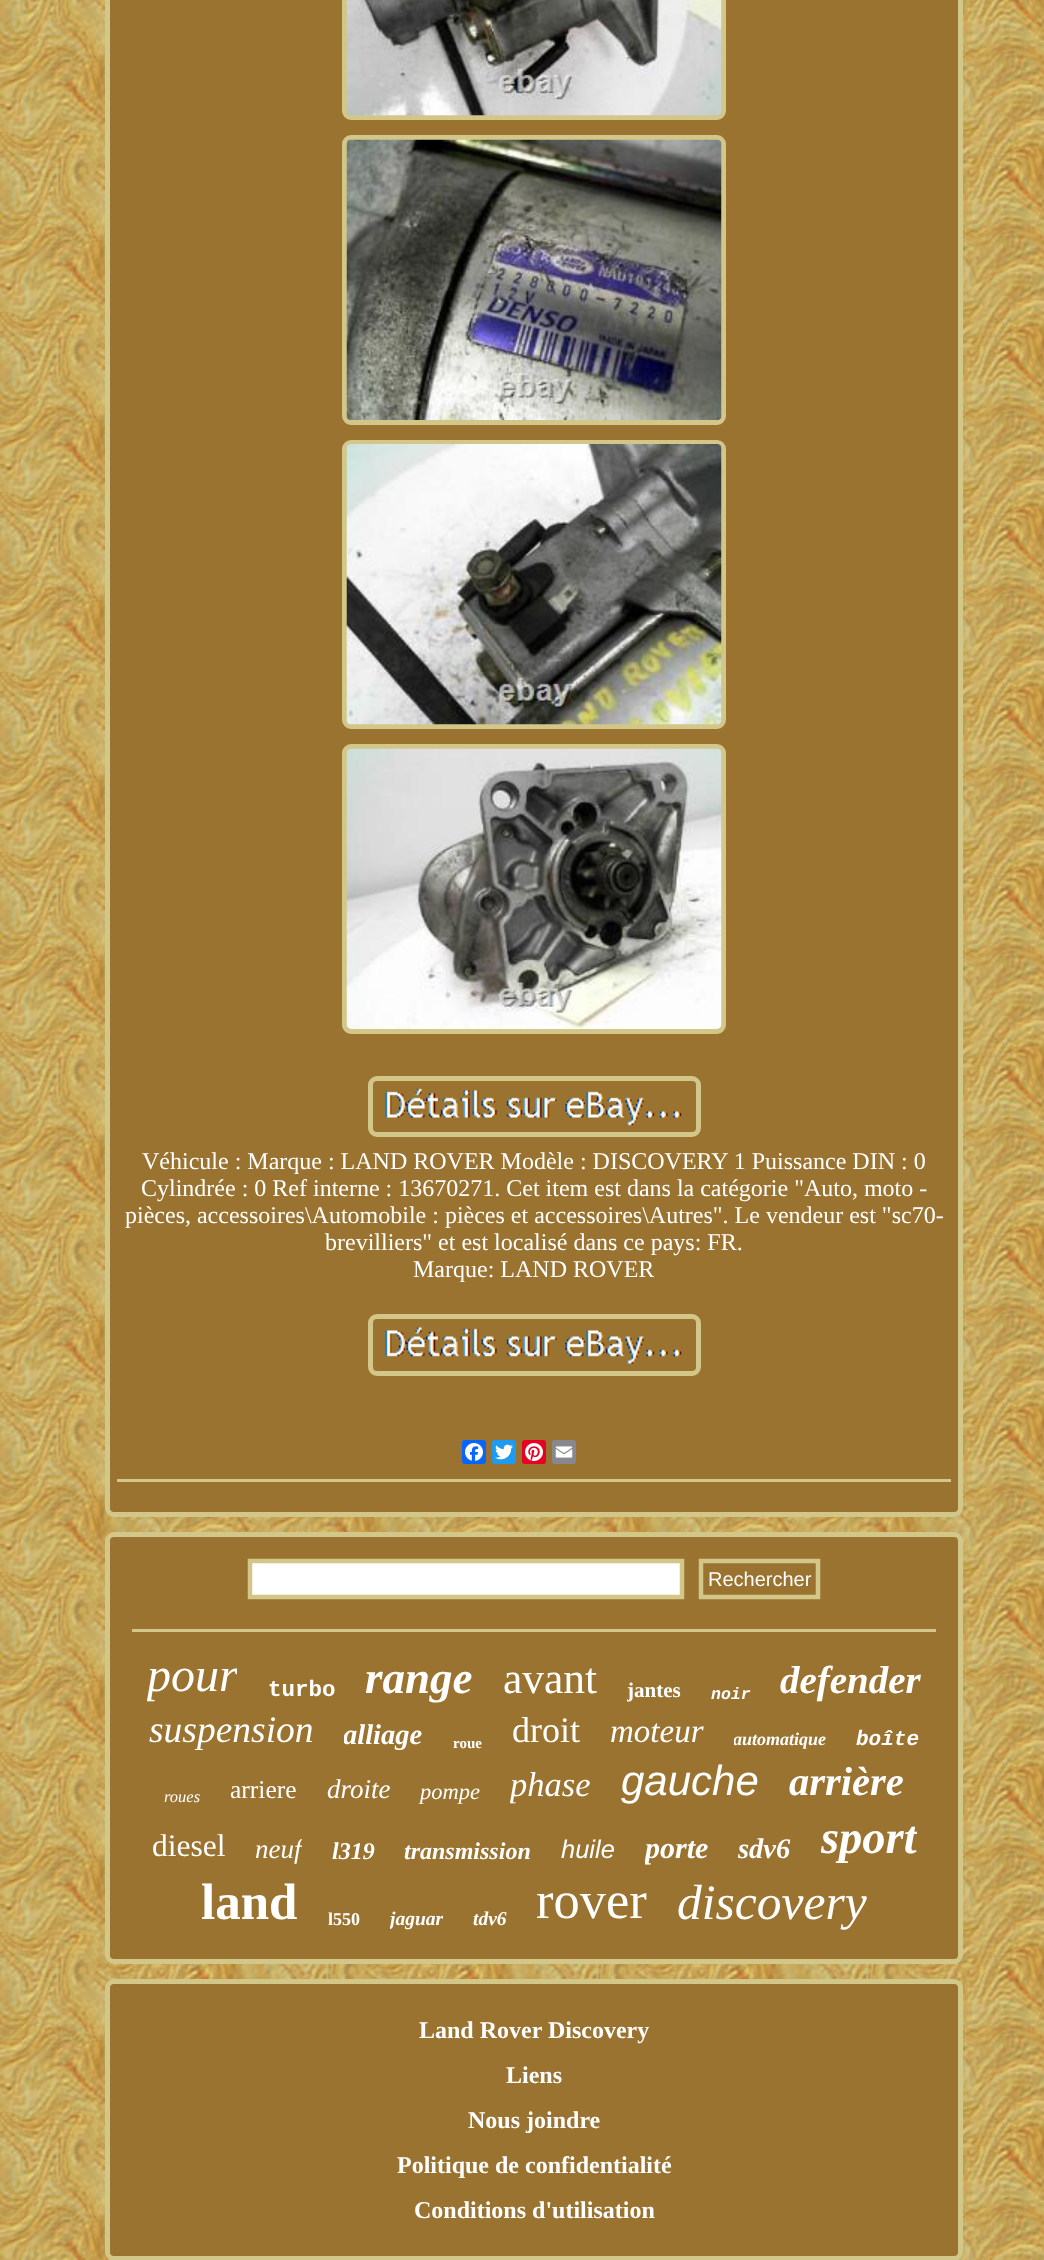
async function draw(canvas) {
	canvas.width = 1044;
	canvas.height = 2260;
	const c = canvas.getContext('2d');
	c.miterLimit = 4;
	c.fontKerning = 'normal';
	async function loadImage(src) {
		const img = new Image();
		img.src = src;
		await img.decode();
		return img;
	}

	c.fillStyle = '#fff';
	c.fillRect(0, 0, 1044, 2260);
	c.drawImage(await loadImage('img1.png'), 0, 0, 1044, 2260);
	c.fillStyle = '#9a7330';
	c.beginPath();
	c.roundRect(107.5, -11.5, 853, 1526, 6.5);
	c.fill();
	c.strokeStyle = '#d2c789';
	c.lineWidth = 5;
	c.stroke();
	c.beginPath();
	c.roundRect(344.5, -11.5, 379, 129, 6.5);
	c.stroke();
	c.drawImage(await loadImage('img2.png'), 346, 0, 376, 116);
	c.beginPath();
	c.roundRect(344.5, 137.5, 379, 285, 6.5);
	c.stroke();
	c.drawImage(await loadImage('img3.png'), 346, 139, 376, 281);
	c.beginPath();
	c.roundRect(344.5, 442.5, 379, 284, 6.5);
	c.stroke();
	c.drawImage(await loadImage('img4.png'), 346, 444, 376, 281);
	c.beginPath();
	c.roundRect(344.5, 746.5, 379, 285, 6.5);
	c.stroke();
	c.drawImage(await loadImage('img5.png'), 346, 748, 376, 281);
	c.beginPath();
	c.roundRect(370.5, 1078.5, 328, 56, 6.5);
	c.stroke();
	c.drawImage(await loadImage('img6.png'), 385, 1088, 297, 38);
	c.font = '24px Liberation Serif';
	c.fillStyle = '#fff';
	for (const [text, x, y] of [
		['Véhicule : Marque : LAND ROVER Modèle : DISCOVERY 1 Puissance DIN : 0', 142, 1169],
		['Cylindrée : 0 Ref interne : 13670271. Cet item est dans la catégorie "Auto, moto -', 141, 1196],
		['pièces, accessoires\\Automobile : pièces et accessoires\\Autres". Le vendeur est "sc70-', 125, 1223],
		['brevilliers" et est localisé dans ce pays: FR.', 325, 1250],
		['Marque: LAND ROVER', 413, 1277],
	]) {
		c.fillText(text, x, y);
	}
	c.beginPath();
	c.roundRect(370.5, 1316.5, 328, 57, 6.5);
	c.stroke();
	c.drawImage(await loadImage('img7.png'), 385, 1327, 297, 37);
	c.fillStyle = '#0866ff';
	c.beginPath();
	c.roundRect(462, 1440, 24, 24, 3);
	c.fill();
	c.drawImage(await loadImage('img8.png'), 465, 1443, 18, 18);
	c.fillStyle = '#1d9bf0';
	c.beginPath();
	c.roundRect(492, 1440, 24, 24, 3);
	c.fill();
	c.drawImage(await loadImage('img9.png'), 495, 1444, 18, 16);
	c.fillStyle = '#e60023';
	c.beginPath();
	c.roundRect(522, 1440, 24, 24, 3);
	c.fill();
	c.drawImage(await loadImage('img10.png'), 525, 1443, 18, 18);
	c.fillStyle = '#888990';
	c.beginPath();
	c.roundRect(552, 1440, 24, 24, 3);
	c.fill();
	c.drawImage(await loadImage('img11.png'), 555, 1446, 18, 12);
	c.fillStyle = '#d2c789';
	c.fillRect(117, 1479, 834, 3);
	c.fillStyle = '#9a7330';
	c.beginPath();
	c.roundRect(107.5, 1534.5, 853, 427, 6.5);
	c.fill();
	c.stroke();
	c.fillStyle = '#fff';
	c.fillRect(252, 1563, 428, 32);
	c.beginPath();
	c.moveTo(250, 1561);
	c.lineTo(682, 1561);
	c.lineTo(682, 1597);
	c.lineTo(250, 1597);
	c.closePath();
	c.lineWidth = 4.5;
	c.stroke();
	c.beginPath();
	c.moveTo(701, 1561);
	c.lineTo(818, 1561);
	c.lineTo(818, 1597);
	c.lineTo(701, 1597);
	c.closePath();
	c.stroke();
	c.font = '20px Liberation Sans';
	c.fillText('Rechercher', 708, 1586);
	c.fillStyle = '#d2c789';
	c.fillRect(132, 1629, 804, 3);
	c.save();
	c.beginPath();
	c.rect(147, 1647, 90, 56);
	c.clip();
	c.font = 'italic 48px Liberation Serif';
	c.fillStyle = '#fff';
	c.fillText('pour', 147, 1691);
	c.restore();
	c.font = 'bold 22.5px Liberation Mono';
	c.fillStyle = '#fff';
	c.fillText('turbo', 268, 1696);
	c.font = 'italic bold 45px Liberation Serif';
	c.fillText('range', 365, 1693);
	c.font = '43.5px Liberation Serif';
	c.fillText('avant', 503, 1693);
	c.save();
	c.beginPath();
	c.rect(627, 1679, 54, 24);
	c.clip();
	c.font = 'bold 21px Liberation Serif';
	c.fillText('jantes', 627, 1697);
	c.restore();
	c.font = 'italic bold 16.5px Liberation Mono';
	c.fillText('noir', 711, 1699);
	c.font = 'italic bold 39px Liberation Serif';
	c.fillText('defender', 780, 1693);
	c.font = 'italic 37.5px Liberation Serif';
	c.fillText('suspension', 149, 1742);
	c.save();
	c.beginPath();
	c.rect(344, 1718, 79, 33);
	c.clip();
	c.font = 'italic bold 28.5px Liberation Serif';
	c.fillText('alliage', 343, 1744);
	c.restore();
	c.font = 'bold 15px Liberation Serif';
	c.fillText('roue', 453, 1748);
	c.font = '36px Liberation Serif';
	c.fillText('droit', 512, 1742);
	c.font = 'italic 33px Liberation Serif';
	c.fillText('moteur', 610, 1742);
	c.save();
	c.beginPath();
	c.rect(734, 1728, 93, 23);
	c.clip();
	c.font = 'italic bold 18px Liberation Serif';
	c.fillText('automatique', 733, 1745);
	c.restore();
	c.font = 'italic bold 21px Liberation Mono';
	c.fillText('boîte', 856, 1745);
	c.font = 'italic 16.5px Liberation Serif';
	c.fillText('roues', 164, 1802);
	c.font = '25.5px Liberation Serif';
	c.fillText('arriere', 230, 1798);
	c.font = 'italic 27px Liberation Serif';
	c.fillText('droite', 327, 1798);
	c.font = 'italic 22.5px Liberation Serif';
	c.fillText('pompe', 420, 1799);
	c.save();
	c.beginPath();
	c.rect(510, 1766, 81, 39);
	c.clip();
	c.font = 'italic 34.5px Liberation Serif';
	c.fillText('phase', 510, 1796);
	c.restore();
	c.font = 'italic 42px Liberation Sans';
	c.fillText('gauche', 621, 1795);
	c.font = 'italic bold 40.5px Liberation Serif';
	c.fillText('arrière', 789, 1795);
	c.font = '31.5px Liberation Serif';
	c.fillText('diesel', 152, 1856);
	c.save();
	c.beginPath();
	c.rect(255, 1833, 47, 32);
	c.clip();
	c.font = 'italic 27px Liberation Serif';
	c.fillText('neuf', 255, 1858);
	c.restore();
	c.font = 'italic bold 24px Liberation Serif';
	c.fillText('l319', 332, 1859);
	c.fillText('transmission', 404, 1859);
	c.font = 'italic 25.5px Liberation Sans';
	c.fillText('huile', 561, 1858);
	c.save();
	c.beginPath();
	c.rect(645, 1830, 63, 35);
	c.clip();
	c.font = 'italic bold 30px Liberation Serif';
	c.fillText('porte', 645, 1858);
	c.restore();
	c.font = 'italic bold 28.5px Liberation Serif';
	c.fillText('sdv6', 738, 1858);
	c.save();
	c.beginPath();
	c.rect(821, 1811, 96, 54);
	c.clip();
	c.font = 'italic bold 46.5px Liberation Serif';
	c.fillText('sport', 821, 1853);
	c.restore();
	c.font = 'bold 51px Liberation Serif';
	c.fillText('land', 201, 1919);
	c.font = 'bold 18px Liberation Serif';
	c.fillText('l550', 328, 1925);
	c.save();
	c.beginPath();
	c.rect(390, 1907, 53, 24);
	c.clip();
	c.font = 'italic bold 19.5px Liberation Serif';
	c.fillText('jaguar', 390, 1925);
	c.restore();
	c.font = 'italic bold 19.5px Liberation Serif';
	c.fillText('tdv6', 473, 1925);
	c.font = '52.5px Liberation Serif';
	c.fillText('rover', 536, 1918);
	c.font = 'italic 49.5px Liberation Serif';
	c.fillText('discovery', 677, 1919);
	c.fillStyle = '#9a7330';
	c.beginPath();
	c.roundRect(107.5, 1981.5, 853, 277, 6.5);
	c.fill();
	c.lineWidth = 5;
	c.stroke();
	c.font = 'bold 24px Liberation Serif';
	c.fillStyle = '#fff';
	for (const [text, x, y] of [
		['Land Rover Discovery', 419, 2038],
		['Liens', 506, 2083],
		['Nous joindre', 468, 2128],
		['Politique de confidentialité', 397, 2173],
		['Conditions d\'utilisation', 414, 2218],
	]) {
		c.fillText(text, x, y);
	}
}

draw(document.querySelector('canvas'));
